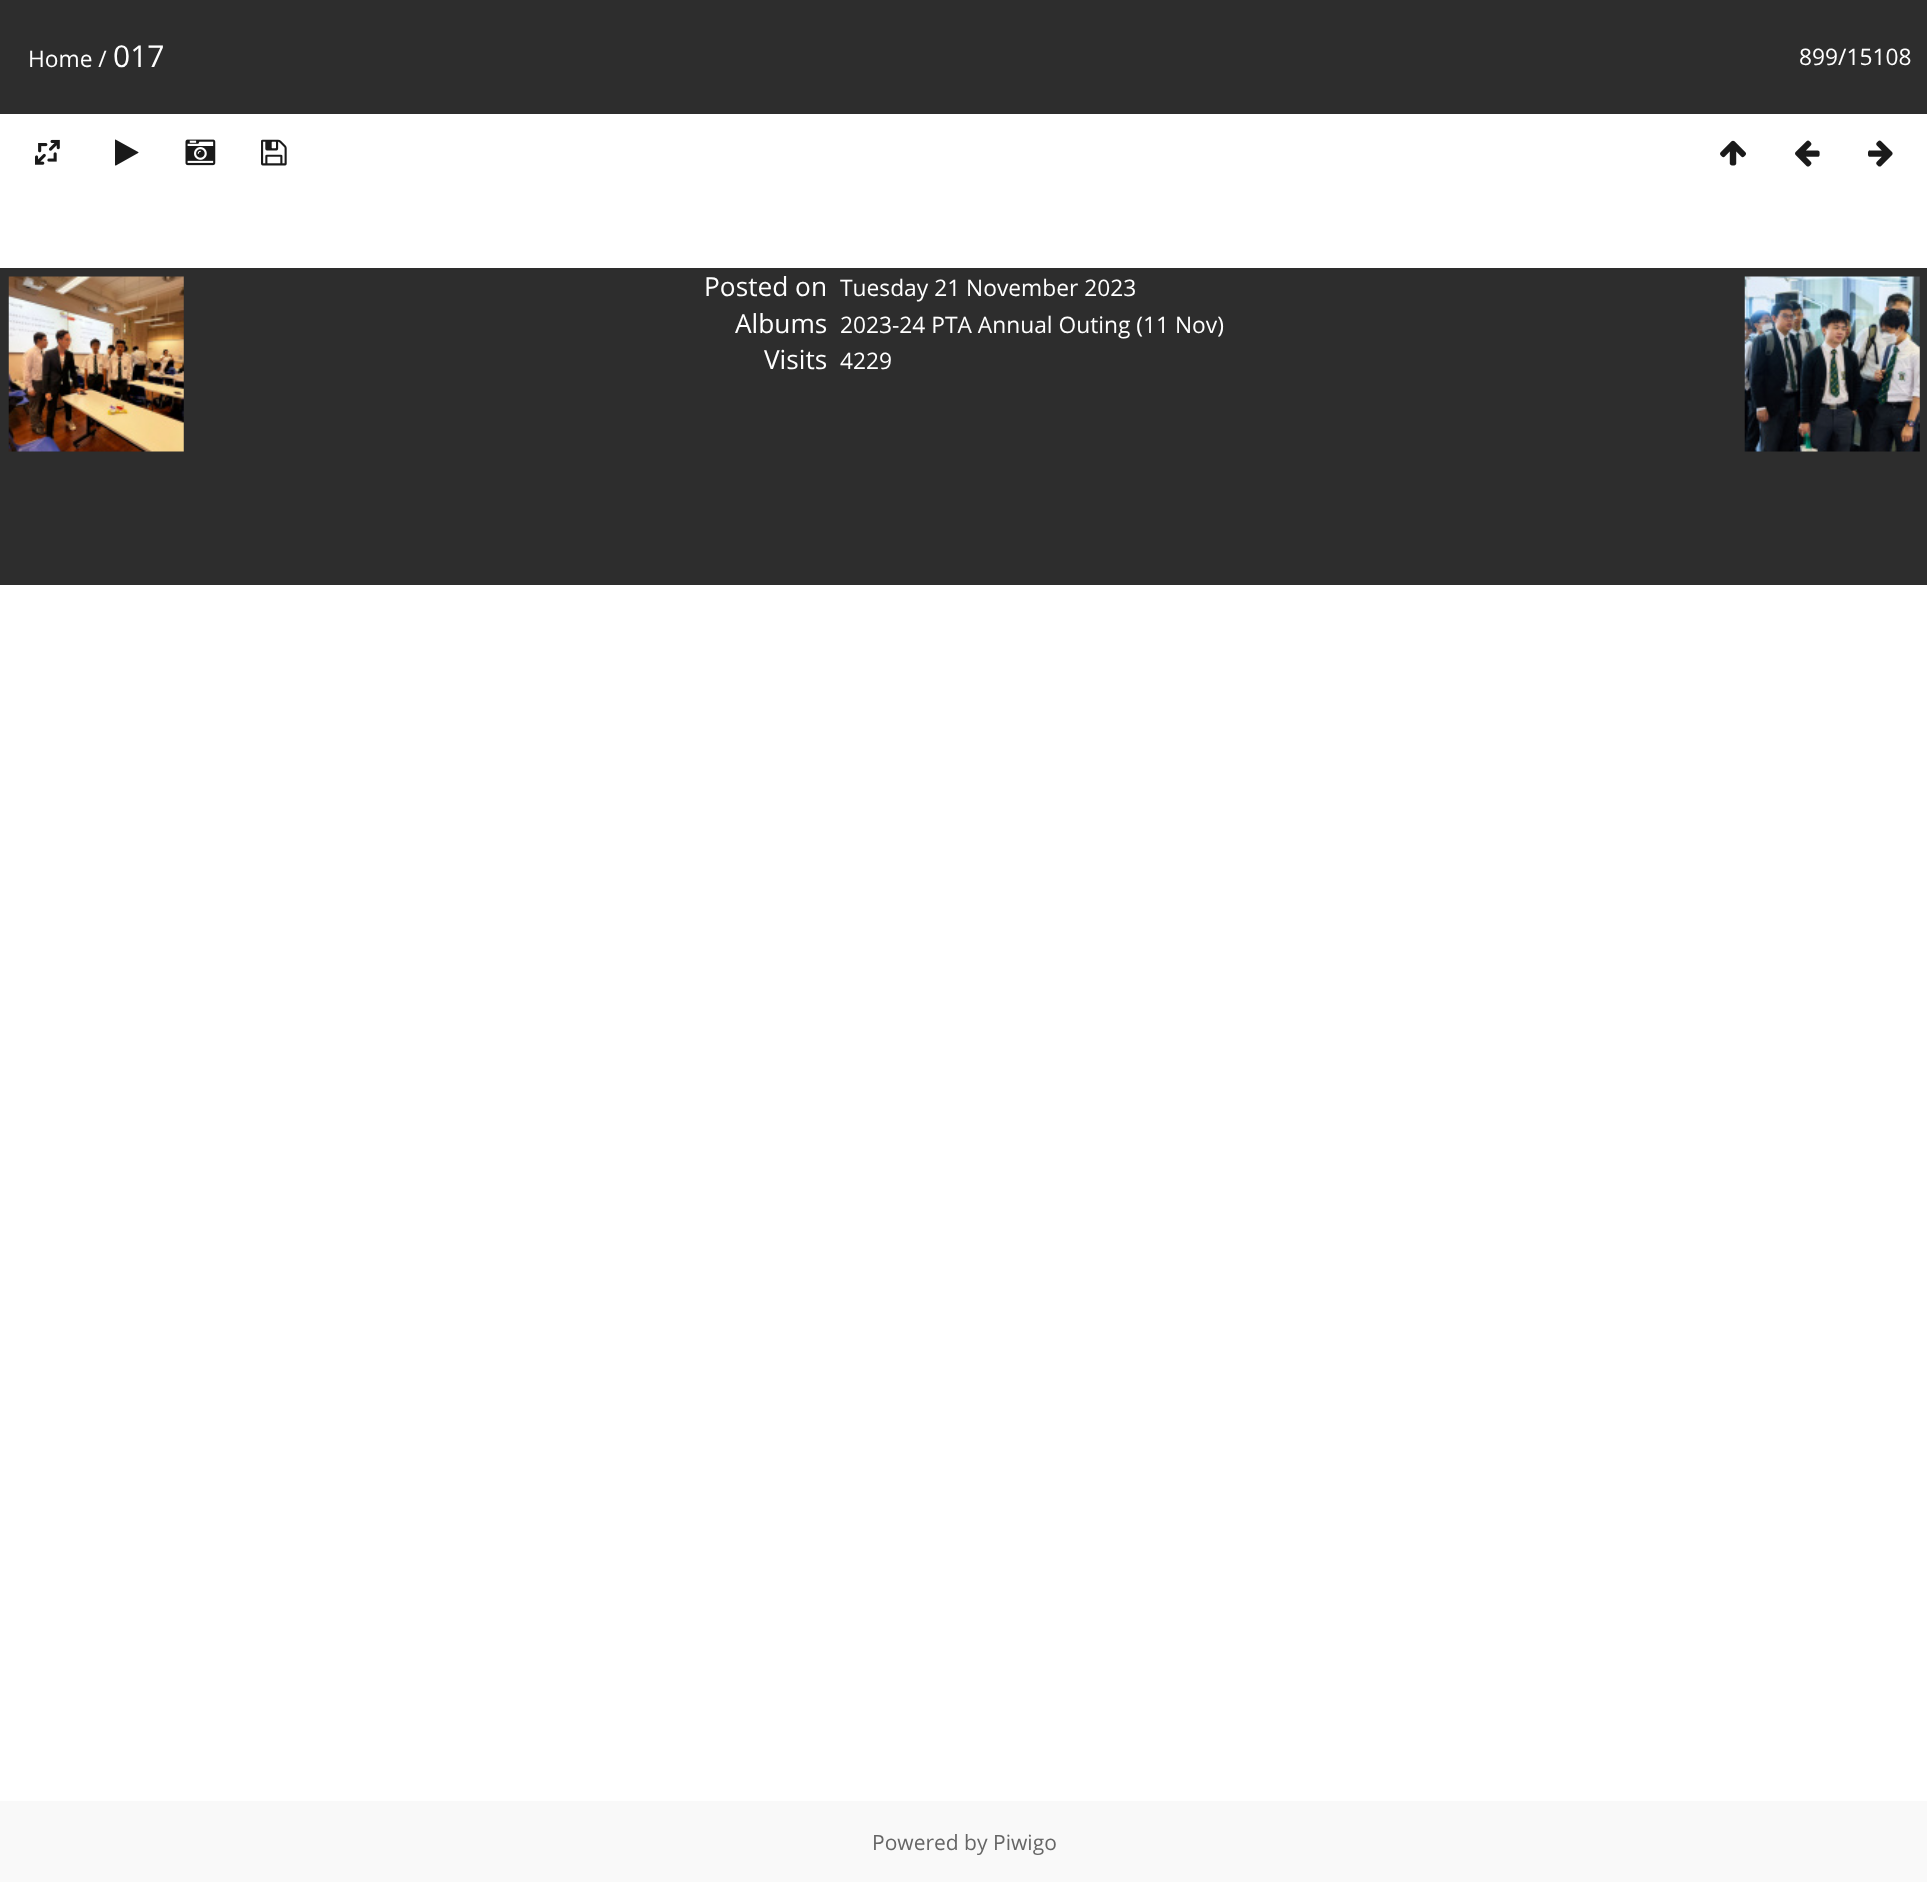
async function draw(canvas) {
	canvas.width = 1927;
	canvas.height = 1882;
	const c = canvas.getContext('2d');
	c.miterLimit = 4;
	c.fontKerning = 'none';
	async function loadImage(src) {
		const img = new Image();
		img.src = src;
		await img.decode();
		return img;
	}

	c.fillStyle = '#fff';
	c.fillRect(0, 0, 1927, 1882);
	c.fillStyle = '#2d2d2d';
	c.fillRect(0, 0, 1927, 114);
	c.font = '22.75px Open Sans';
	c.fillStyle = '#fff';
	c.fillText('Home /', 28, 67);
	c.font = '30px Open Sans';
	c.fillText('017', 113, 67);
	c.font = '22.75px Open Sans';
	c.fillText('899/15108', 1799, 65);
	c.drawImage(await loadImage('img1.png'), 35, 139, 25, 26);
	c.font = '30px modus';
	c.fillStyle = '#1a1a1a';
	c.fillText('▶', 115, 163);
	c.drawImage(await loadImage('img2.png'), 185, 139, 31, 27);
	for (const [text, x, y] of [
		['💾', 261, 163],
		['↑', 1720, 163],
		['←', 1795, 163],
		['→', 1868, 163],
	]) {
		c.fillText(text, x, y);
	}
	c.fillStyle = '#2d2d2d';
	c.fillRect(0, 268, 1927, 317);
	c.drawImage(await loadImage('img3.png'), 8, 276, 176, 176);
	c.drawImage(await loadImage('img4.png'), 1744, 276, 176, 176);
	c.font = '26.25px Open Sans';
	c.fillStyle = '#fff';
	c.fillText('Posted on', 704, 296);
	c.font = '22.75px Open Sans';
	c.fillText('Tuesday 21 November 2023', 840, 296);
	c.font = '26.25px Open Sans';
	c.fillText('Albums', 735, 333);
	c.font = '22.75px Open Sans';
	c.fillText('2023-24 PTA Annual Outing (11 Nov)', 840, 333);
	c.font = '26.25px Open Sans';
	c.fillText('Visits', 764, 369);
	c.font = '22.75px Open Sans';
	c.fillText('4229', 840, 369);
	c.fillStyle = '#f9f9f9';
	c.fillRect(0, 1801, 1927, 81);
	c.font = '21px Open Sans';
	c.fillStyle = '#666';
	c.fillText('Powered by Piwigo', 872, 1850);
}

draw(document.querySelector('canvas'));
